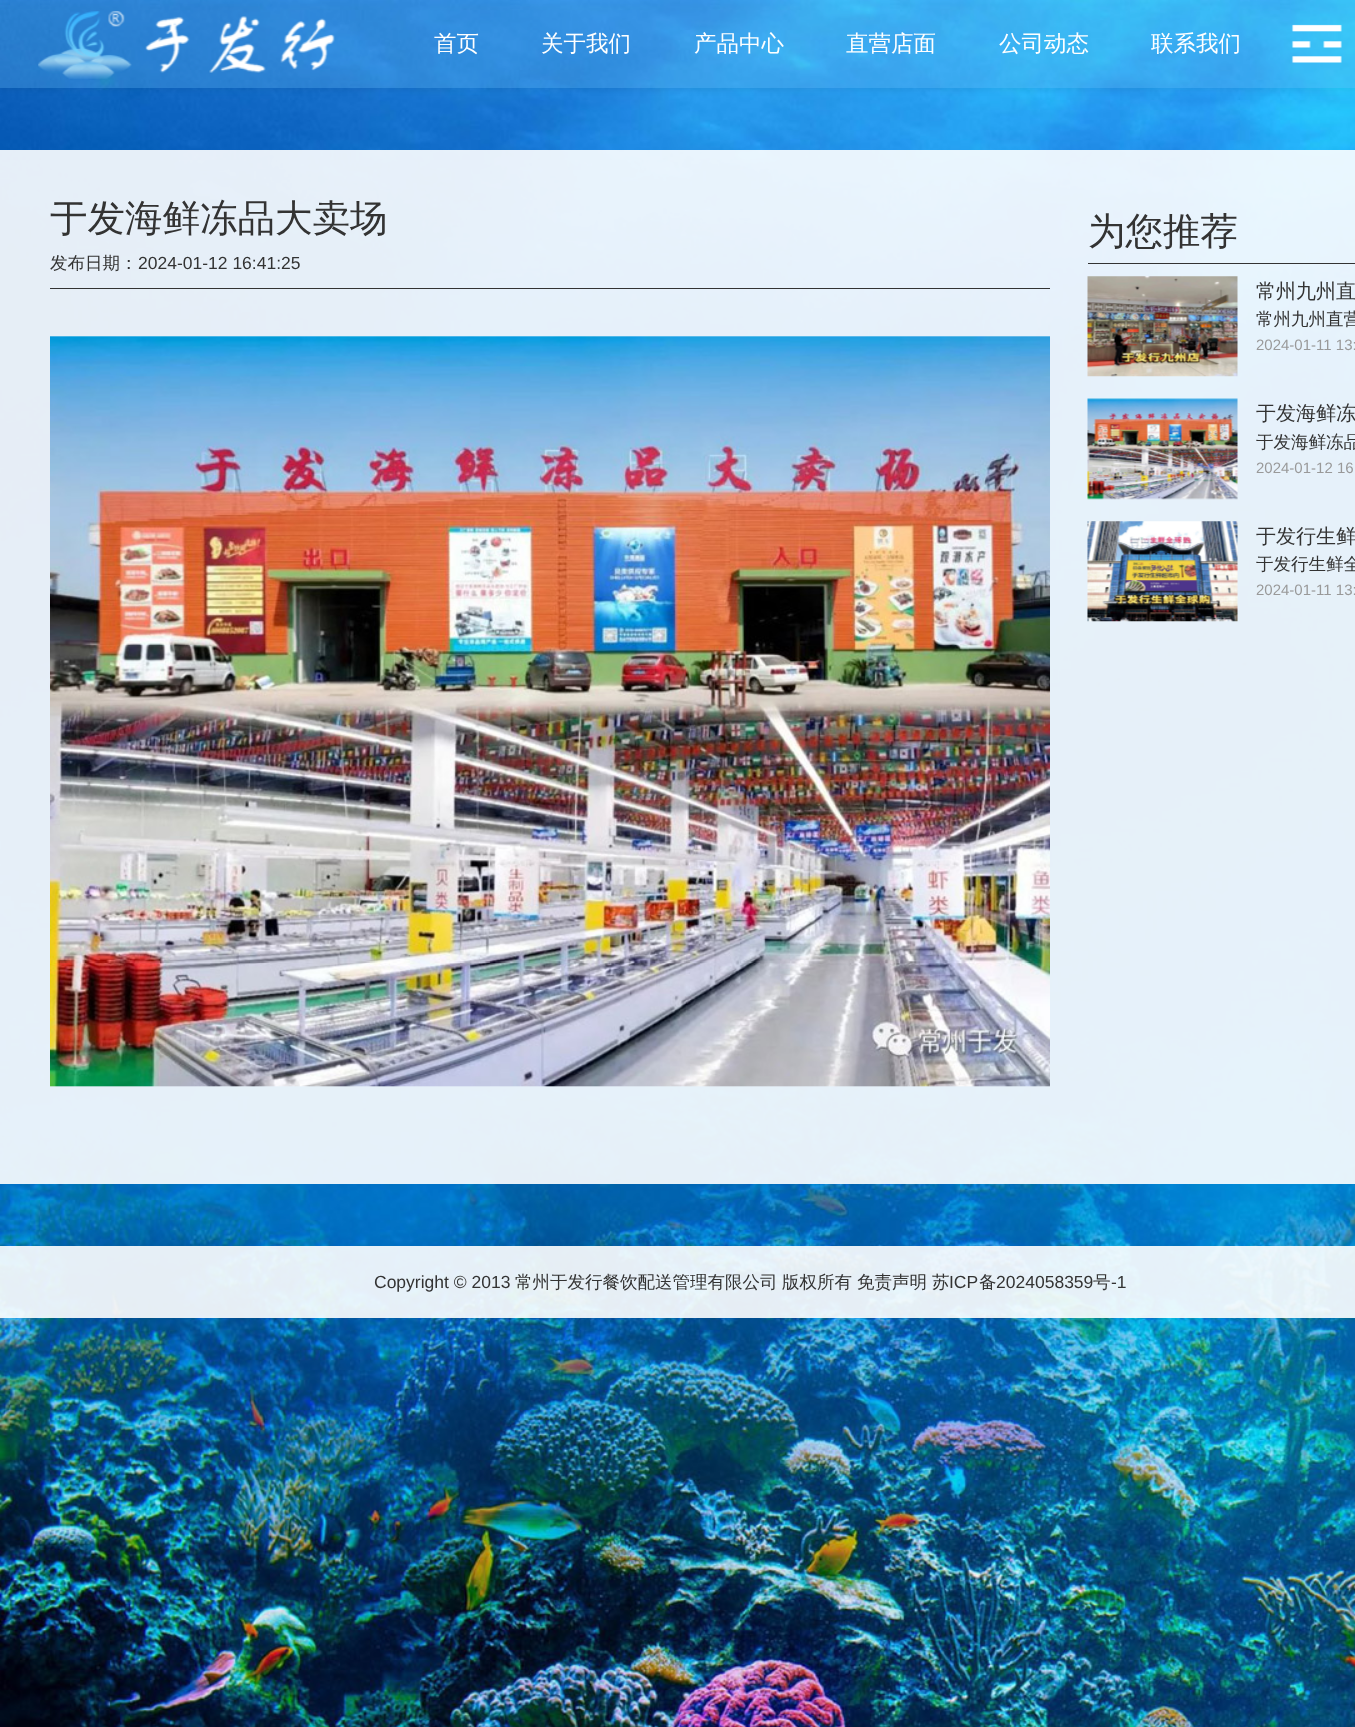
async function draw(canvas) {
	canvas.width = 1355;
	canvas.height = 1727;
	const c = canvas.getContext('2d');
	c.miterLimit = 4;
	c.fontKerning = 'normal';
	async function loadImage(src) {
		const img = new Image();
		img.src = src;
		await img.decode();
		return img;
	}

	c.fillStyle = '#fff';
	c.fillRect(0, 0, 1355, 1727);
	c.drawImage(await loadImage('img1.png'), 0, 0, 1355, 1727);
	c.save();
	c.beginPath();
	c.moveTo(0, 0);
	c.lineTo(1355, 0);
	c.lineTo(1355, 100);
	c.lineTo(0, 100);
	c.closePath();
	c.moveTo(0, 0);
	c.lineTo(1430, 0);
	c.lineTo(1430, 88);
	c.lineTo(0, 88);
	c.closePath();
	c.clip('evenodd');
	c.fillStyle = '#0000000f';
	c.filter = 'blur(3px)';
	c.beginPath();
	c.rect(0, 3, 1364, 87);
	c.fill();
	c.filter = 'none';
	c.restore();
	c.fillStyle = '#63b4ec4d';
	c.fillRect(0, 0, 1355, 88);
	c.drawImage(await loadImage('img2.png'), 38, 11, 297, 68);
	c.font = '500 22.5px WenQuanYi Zen Hei';
	c.fillStyle = '#fff';
	for (const [text, x, y] of [
		['首页', 434, 51],
		['关于我们', 541, 51],
		['产品中心', 694, 51],
		['直营店面', 846, 51],
		['公司动态', 999, 51],
		['联系我们', 1151, 51],
	]) {
		c.fillText(text, x, y);
	}
	c.drawImage(await loadImage('img3.png'), 1291, 24, 51, 39);
	c.fillStyle = '#ffffffe6';
	c.fillRect(0, 150, 1355, 1034);
	c.font = '500 37.5px WenQuanYi Zen Hei';
	c.fillStyle = '#333';
	c.fillText('于发海鲜冻品大卖场', 50, 231);
	c.fillRect(50, 288, 1000, 1);
	c.font = '500 17.5px WenQuanYi Zen Hei';
	c.fillText('发布日期：', 50, 269);
	c.font = '17.5px Liberation Sans';
	c.fillText('2024-01-12 16:41:25', 138, 269);
	c.drawImage(await loadImage('img4.png'), 50, 336, 1000, 751);
	c.fillRect(1088, 263, 267, 1);
	c.font = '500 37.5px WenQuanYi Zen Hei';
	c.fillText('为您推荐', 1088, 244);
	c.drawImage(await loadImage('img5.png'), 1087, 276, 151, 101);
	c.font = '500 20px WenQuanYi Zen Hei';
	c.fillText('常州九州直', 1256, 298);
	c.font = '500 17.5px WenQuanYi Zen Hei';
	c.fillText('常州九州直营', 1256, 325);
	c.font = '15px Liberation Sans';
	c.fillStyle = '#999';
	c.fillText('2024-01-11 13:', 1256, 350);
	c.drawImage(await loadImage('img6.png'), 1087, 398, 151, 102);
	c.font = '500 20px WenQuanYi Zen Hei';
	c.fillStyle = '#333';
	c.fillText('于发海鲜冻', 1256, 420);
	c.font = '500 17.5px WenQuanYi Zen Hei';
	c.fillText('于发海鲜冻品', 1256, 448);
	c.font = '15px Liberation Sans';
	c.fillStyle = '#999';
	c.fillText('2024-01-12 16', 1256, 473);
	c.drawImage(await loadImage('img7.png'), 1087, 521, 151, 101);
	c.font = '500 20px WenQuanYi Zen Hei';
	c.fillStyle = '#333';
	c.fillText('于发行生鲜', 1256, 543);
	c.font = '500 17.5px WenQuanYi Zen Hei';
	c.fillText('于发行生鲜全', 1256, 570);
	c.font = '15px Liberation Sans';
	c.fillStyle = '#999';
	c.fillText('2024-01-11 13:', 1256, 595);
	c.fillStyle = '#ffffffe6';
	c.fillRect(0, 1246, 1355, 72);
	c.font = '17.5px Liberation Sans';
	c.fillStyle = '#333';
	c.fillText('Copyright © 2013', 374, 1288);
	c.font = '500 17.5px WenQuanYi Zen Hei';
	for (const [text, x, y] of [
		['常州于发行餐饮配送管理有限公司', 515, 1288],
		['版权所有', 782, 1288],
		['免责声明', 857, 1288],
		['苏', 932, 1288],
	]) {
		c.fillText(text, x, y);
	}
	c.font = '17.5px Liberation Sans';
	c.fillText('ICP', 949, 1288);
	c.font = '500 17.5px WenQuanYi Zen Hei';
	c.fillText('备', 979, 1288);
	c.font = '17.5px Liberation Sans';
	c.fillText('2024058359', 996, 1288);
	c.font = '500 17.5px WenQuanYi Zen Hei';
	c.fillText('号', 1093, 1288);
	c.font = '17.5px Liberation Sans';
	c.fillText('-1', 1111, 1288);
}

draw(document.querySelector('canvas'));
